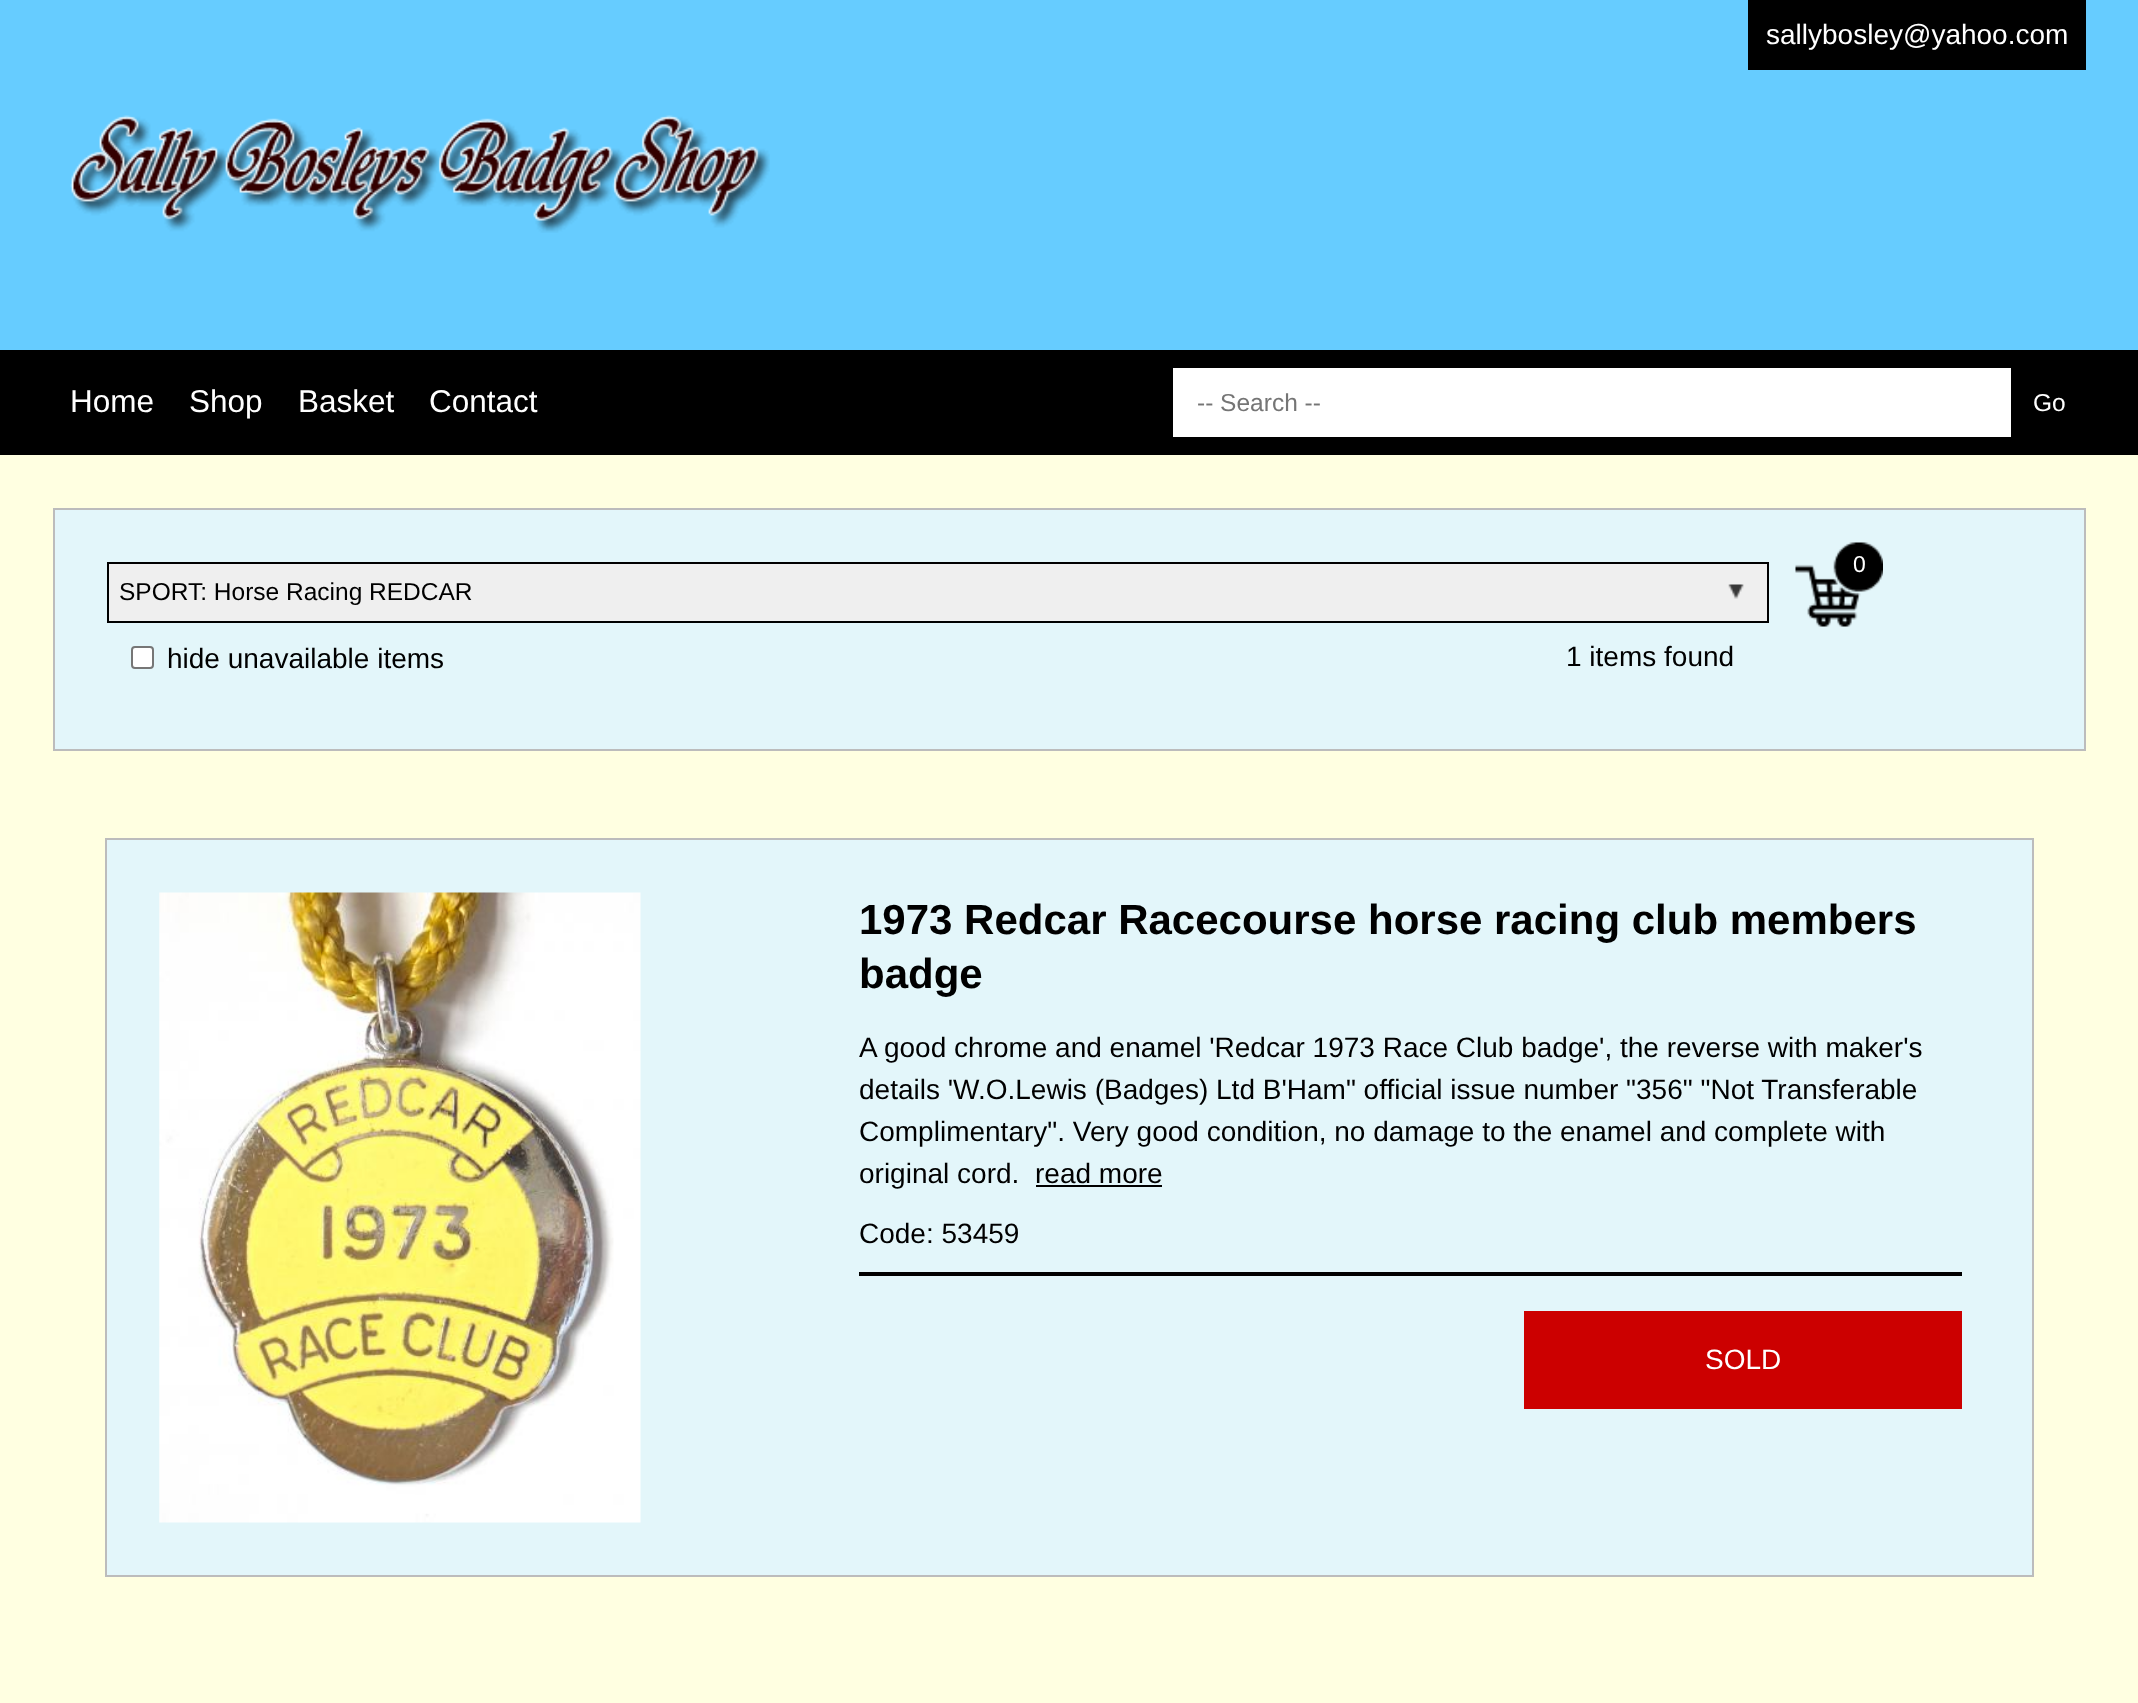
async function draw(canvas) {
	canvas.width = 2138;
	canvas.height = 1703;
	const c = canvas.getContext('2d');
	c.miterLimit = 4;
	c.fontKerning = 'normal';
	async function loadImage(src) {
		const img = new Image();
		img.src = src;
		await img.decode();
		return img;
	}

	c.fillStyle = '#6cf';
	c.fillRect(0, 0, 2138, 1703);
	c.fillStyle = '#000';
	c.fillRect(1748, 0, 338, 70);
	c.font = '28px Liberation Sans';
	c.fillStyle = '#fff';
	c.fillText('sallybosley@yahoo.com', 1766, 44);
	c.drawImage(await loadImage('img1.png'), 70, 115, 700, 118);
	c.fillStyle = '#000';
	c.fillRect(0, 350, 2138, 105);
	c.font = '31.5px Liberation Sans';
	c.fillStyle = '#fff';
	for (const [text, x, y] of [
		['Home', 70, 412],
		['Shop', 189, 412],
		['Basket', 298, 412],
		['Contact', 429, 412],
	]) {
		c.fillText(text, x, y);
	}
	c.fillRect(1173, 368, 838, 69);
	c.font = '24.5px Liberation Sans';
	c.fillStyle = '#757575';
	c.fillText('-- Search --', 1197, 411);
	c.fillStyle = '#fff';
	c.fillText('Go', 2033, 411);
	c.fillStyle = '#ffffe1';
	c.fillRect(0, 455, 2138, 1248);
	c.fillStyle = '#e3f6fa';
	c.beginPath();
	c.rect(54, 509, 2031, 241);
	c.fill();
	c.strokeStyle = '#bcbcbc';
	c.lineWidth = 2;
	c.stroke();
	c.drawImage(await loadImage('img2.png'), 1795, 542, 88, 85);
	c.font = '23px Liberation Sans';
	c.fillStyle = '#fff';
	c.fillText('0', 1853, 572);
	c.fillStyle = '#efefef';
	c.fillRect(109, 564, 1658, 57);
	c.drawImage(await loadImage('img3.png'), 1728, 584, 16, 15);
	c.strokeStyle = '#000';
	c.strokeRect(108, 563, 1660, 59);
	c.font = '24.5px Liberation Sans';
	c.fillStyle = '#000';
	c.fillText('SPORT: Horse Racing REDCAR', 119, 600);
	c.fillStyle = '#fff';
	c.beginPath();
	c.roundRect(132, 647, 21, 21, 3);
	c.fill();
	c.strokeStyle = '#767676';
	c.stroke();
	c.font = '28px Liberation Sans';
	c.fillStyle = '#000';
	c.fillText('hide unavailable items', 167, 668);
	c.fillText('1 items found', 1566, 666);
	c.fillStyle = '#e3f6fa';
	c.beginPath();
	c.rect(106, 839, 1927, 737);
	c.fill();
	c.strokeStyle = '#bcbcbc';
	c.stroke();
	c.drawImage(await loadImage('img4.png'), 159, 892, 482, 631);
	c.font = 'bold 42px Liberation Sans';
	c.fillStyle = '#000';
	c.fillText('1973 Redcar Racecourse horse racing club members', 859, 934);
	c.fillText('badge', 859, 988);
	c.font = '28px Liberation Sans';
	for (const [text, x, y] of [
		['A good chrome and enamel \'Redcar 1973 Race Club badge\', the reverse with maker\'s', 859, 1057],
		['details \'W.O.Lewis (Badges) Ltd B\'Ham" official issue number "356" "Not Transferable', 859, 1099],
		['Complimentary". Very good condition, no damage to the enamel and complete with', 859, 1141],
		['original cord.', 859, 1183],
		['read more', 1035, 1183],
	]) {
		c.fillText(text, x, y);
	}
	c.fillRect(1036, 1185, 126, 2);
	c.fillText('Code: 53459', 859, 1243);
	c.fillRect(859, 1272, 1103, 4);
	c.fillStyle = '#c00';
	c.fillRect(1524, 1311, 438, 98);
	c.fillStyle = '#fff';
	c.fillText('SOLD', 1705, 1369);
}

draw(document.querySelector('canvas'));
